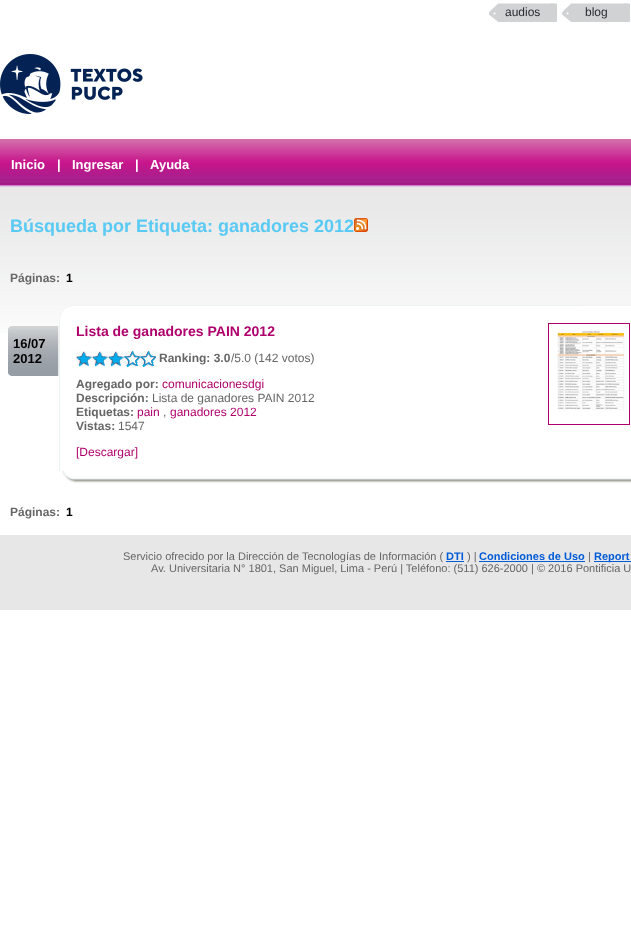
async function draw(canvas) {
	canvas.width = 631;
	canvas.height = 948;
	const c = canvas.getContext('2d');
	c.miterLimit = 4;
	c.fontKerning = 'normal';
	async function loadImage(src) {
		const img = new Image();
		img.src = src;
		await img.decode();
		return img;
	}

	c.fillStyle = '#fff';
	c.fillRect(0, 0, 631, 948);
	c.drawImage(await loadImage('img1.png'), 489, 3, 68, 19);
	c.font = '12px Liberation Sans';
	c.fillStyle = '#292b2f';
	c.fillText('audios', 505, 16);
	c.drawImage(await loadImage('img1.png'), 562, 3, 68, 19);
	c.fillText('blog', 585, 16);
	c.drawImage(await loadImage('img2.png'), 0, 54, 143, 60);
	c.drawImage(await loadImage('img3.png'), 0, 139, 631, 48);
	c.font = 'bold 13px Liberation Sans';
	c.fillStyle = '#fff';
	for (const [text, x, y] of [
		['Inicio', 11, 169],
		['|', 57, 169],
		['Ingresar', 72, 169],
		['|', 135, 169],
		['Ayuda', 150, 169],
	]) {
		c.fillText(text, x, y);
	}
	c.drawImage(await loadImage('img4.png'), 0, 187, 631, 146);
	c.font = 'bold 18px Liberation Sans';
	c.fillStyle = '#58caf4';
	c.fillText('Búsqueda por Etiqueta: ganadores 2012', 10, 232);
	c.drawImage(await loadImage('img5.png'), 354, 218, 14, 14);
	c.font = 'bold 12px Liberation Sans';
	c.fillStyle = '#666';
	c.fillText('Páginas:', 10, 282);
	c.fillStyle = '#000';
	c.fillText('1', 66, 282);
	c.drawImage(await loadImage('img8.png'), 58, 323, 573, 162);
	c.drawImage(await loadImage('img6.png'), 8, 326, 51, 50);
	c.font = 'bold 13px Liberation Sans';
	c.fillText('16/07', 13, 348);
	c.fillText('2012', 13, 363);
	c.drawImage(await loadImage('img7.png'), 59, 305, 572, 18);
	c.font = 'bold 14px Liberation Sans';
	c.fillStyle = '#af006b';
	c.fillText('Lista de ganadores PAIN 2012', 76, 336);
	c.drawImage(await loadImage('img9.png'), 124, 351, 32, 16);
	c.drawImage(await loadImage('img10.png'), 76, 351, 48, 16);
	c.font = 'bold 12px Liberation Sans';
	c.fillStyle = '#666';
	c.fillText('Ranking: 3.0', 159, 362);
	c.font = '12px Liberation Sans';
	c.fillText('/5.0 (142 votos)', 231, 362);
	c.font = 'bold 12px Liberation Sans';
	c.fillText('Agregado por:', 76, 388);
	c.font = '12px Liberation Sans';
	c.fillStyle = '#af006b';
	c.fillText('comunicacionesdgi', 162, 388);
	c.font = 'bold 12px Liberation Sans';
	c.fillStyle = '#666';
	c.fillText('Descripción:', 76, 402);
	c.font = '12px Liberation Sans';
	c.fillText('Lista de ganadores PAIN 2012', 152, 402);
	c.font = 'bold 12px Liberation Sans';
	c.fillText('Etiquetas:', 76, 416);
	c.font = '12px Liberation Sans';
	c.fillStyle = '#af006b';
	c.fillText('pain', 137, 416);
	c.fillStyle = '#666';
	c.fillText(',', 163, 416);
	c.fillStyle = '#af006b';
	c.fillText('ganadores 2012', 170, 416);
	c.font = 'bold 12px Liberation Sans';
	c.fillStyle = '#666';
	c.fillText('Vistas:', 76, 430);
	c.font = '12px Liberation Sans';
	c.fillText('1547', 118, 430);
	c.fillStyle = '#af006b';
	c.fillText('[Descargar]', 76, 456);
	c.strokeStyle = '#af006b';
	c.strokeRect(548.5, 323.5, 81, 101);
	c.drawImage(await loadImage('img11.png'), 557, 331, 68, 79);
	c.drawImage(await loadImage('img12.png'), 59, 471, 572, 14);
	c.font = 'bold 12px Liberation Sans';
	c.fillStyle = '#666';
	c.fillText('Páginas:', 10, 516);
	c.fillStyle = '#000';
	c.fillText('1', 66, 516);
	c.fillStyle = '#e7e7e7';
	c.fillRect(0, 535, 631, 75);
	c.font = '11px Liberation Sans';
	c.fillStyle = '#666';
	c.fillText('Servicio ofrecido por la Dirección de Tecnologías de Información (', 123, 560);
	c.font = 'bold 11px Liberation Sans';
	c.fillStyle = '#025cd7';
	c.fillText('DTI', 446, 560);
	c.fillRect(446, 561, 18, 1);
	c.font = '11px Liberation Sans';
	c.fillStyle = '#666';
	c.fillText(') |', 467, 560);
	c.font = 'bold 11px Liberation Sans';
	c.fillStyle = '#025cd7';
	c.fillText('Condiciones de Uso', 479, 560);
	c.fillRect(479, 561, 106, 1);
	c.font = '11px Liberation Sans';
	c.fillStyle = '#666';
	c.fillText('|', 588, 560);
	c.fillStyle = '#025cd7';
	c.fillRect(594, 561, 37, 1);
	c.font = 'bold 11px Liberation Sans';
	c.fillText('Report', 594, 560);
	c.font = '11px Liberation Sans';
	c.fillStyle = '#666';
	c.fillText('Av. Universitaria N° 1801, San Miguel, Lima - Perú | Teléfono: (511) 626-2000 | © 2016 Pontificia U', 151, 572);
}

draw(document.querySelector('canvas'));
